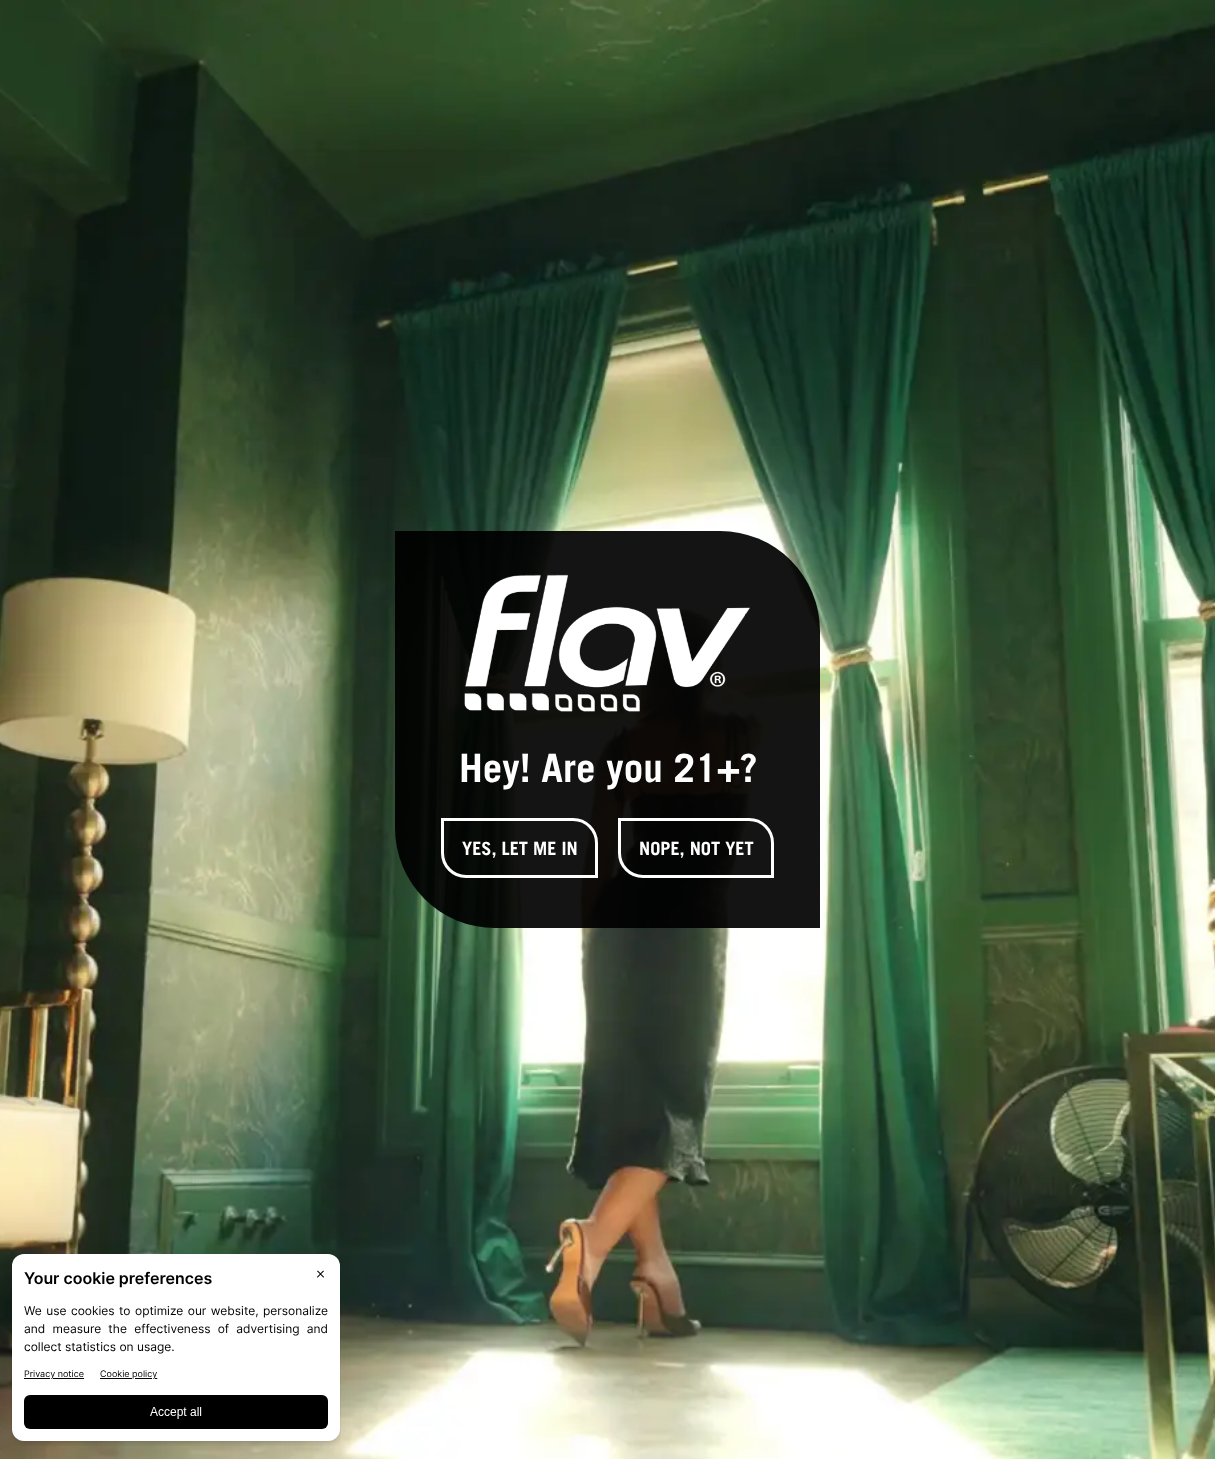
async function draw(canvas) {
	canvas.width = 1215;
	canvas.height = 1459;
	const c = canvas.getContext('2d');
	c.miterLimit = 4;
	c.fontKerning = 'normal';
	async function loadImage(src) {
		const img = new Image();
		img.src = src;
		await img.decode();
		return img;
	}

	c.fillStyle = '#fff';
	c.fillRect(0, 0, 1215, 1459);
	c.drawImage(await loadImage('img1.png'), 0, 0, 1215, 1459);
	c.fillStyle = '#000000eb';
	c.beginPath();
	c.roundRect(395, 531, 425, 397, [0, 100, 0, 100]);
	c.fill();
	c.drawImage(await loadImage('img2.png'), 464, 574, 286, 138);
	c.font = 'bold 39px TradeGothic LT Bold';
	c.fillStyle = '#fff';
	c.fillText('Hey! Are you 21+?', 459, 782);
	c.beginPath();
	c.roundRect(442.5, 819.5, 154, 57, [0, 23.5, 0, 23.5]);
	c.strokeStyle = '#fff';
	c.lineWidth = 3;
	c.stroke();
	c.font = 'bold 18.25px TradeGothic LT Bold';
	c.fillText('YES, LET ME IN', 462, 855);
	c.beginPath();
	c.roundRect(619.5, 819.5, 153, 57, [0, 23.5, 0, 23.5]);
	c.stroke();
	c.fillText('NOPE, NOT YET', 639, 855);
	c.drawImage(await loadImage('img3.png'), 11, 1254, 330, 192);
}

draw(document.querySelector('canvas'));
